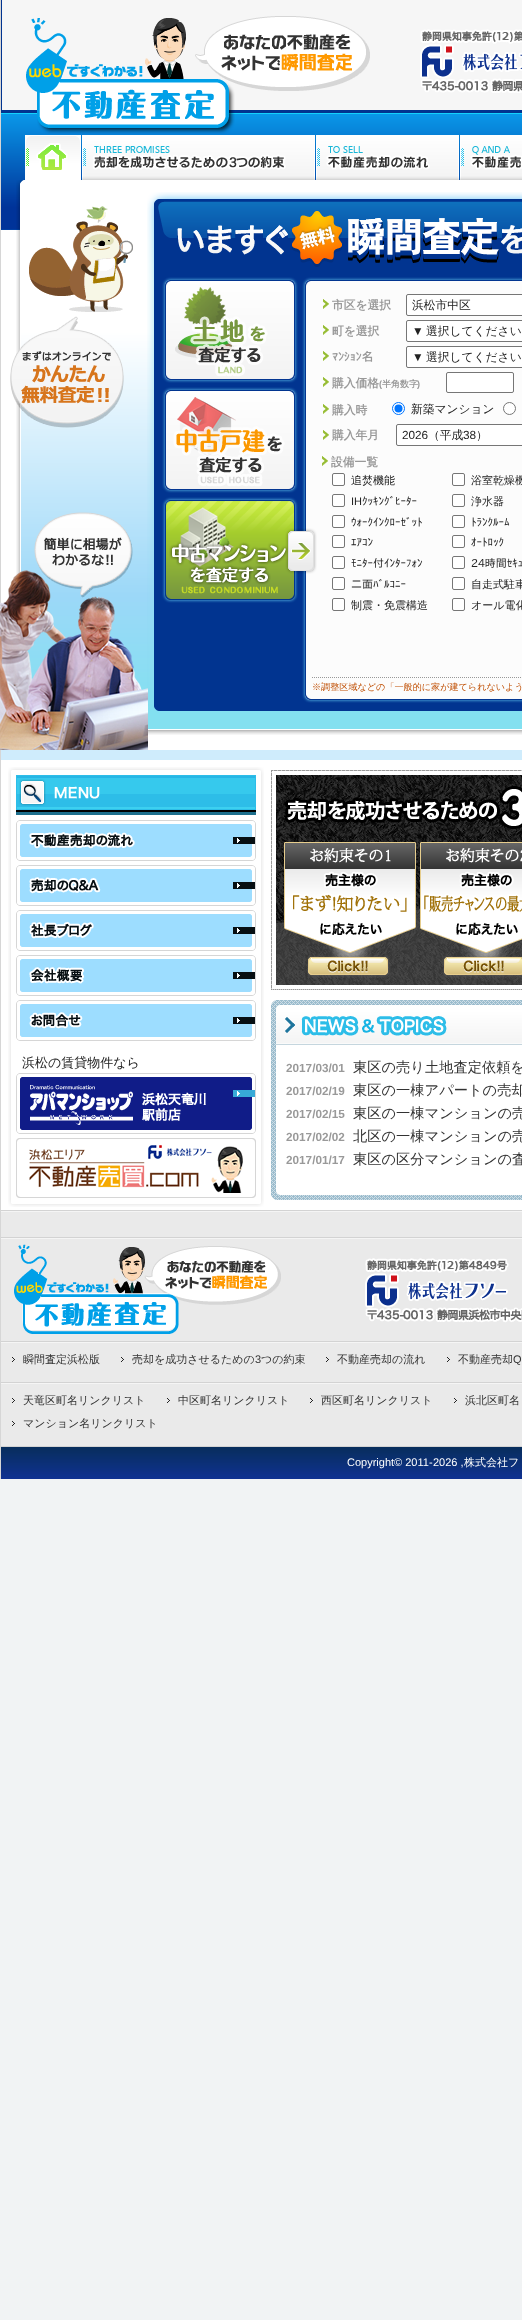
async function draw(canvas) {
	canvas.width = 522;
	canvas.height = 2320;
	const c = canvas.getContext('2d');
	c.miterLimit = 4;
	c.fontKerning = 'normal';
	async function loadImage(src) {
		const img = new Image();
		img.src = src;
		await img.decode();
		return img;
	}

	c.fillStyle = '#f1f3f4';
	c.fillRect(0, 0, 522, 2320);
	for (const [x, y, w, h, color] of [
		[2, 0, 520, 110, '#f6f6f6'],
		[1, 110, 521, 3, '#013490'],
		[1, 0, 1, 113, '#013490'],
	]) {
		c.fillStyle = color;
		c.fillRect(x, y, w, h);
	}
	c.drawImage(await loadImage('img4.png'), 1, 113, 521, 117);
	c.drawImage(await loadImage('img1.png'), 26, 16, 344, 118);
	c.drawImage(await loadImage('img2.png'), 420, 29, 102, 64);
	c.fillStyle = '#fff';
	c.fillRect(1, 230, 521, 980);
	c.drawImage(await loadImage('img9.png'), 16, 180, 506, 555);
	c.drawImage(await loadImage('img3.png'), 29, 206, 104, 106);
	c.fillStyle = '#d6d6d6';
	c.fillRect(0, 0, 1, 1210);
	c.drawImage(await loadImage('img5.png'), 25, 135, 56, 45);
	c.drawImage(await loadImage('img6.png'), 82, 135, 233, 45);
	c.drawImage(await loadImage('img7.png'), 316, 135, 143, 45);
	c.drawImage(await loadImage('img8.png'), 460, 135, 62, 45);
	c.drawImage(await loadImage('img10.png'), 147, 270, 375, 441);
	c.drawImage(await loadImage('img11.png'), 147, 192, 375, 78);
	c.drawImage(await loadImage('img12.png'), 162, 277, 136, 106);
	c.drawImage(await loadImage('img13.png'), 162, 387, 136, 106);
	c.drawImage(await loadImage('img15.png'), 302, 277, 220, 426);
	c.drawImage(await loadImage('img14.png'), 162, 497, 155, 106);
	c.drawImage(await loadImage('img16.png'), 323, 299, 6, 10);
	c.font = 'bold 11.75px WenQuanYi Zen Hei';
	c.fillStyle = '#999';
	c.fillText('市区を選択', 332, 309);
	c.fillStyle = '#fff';
	c.beginPath();
	c.roundRect(406.5, 294.5, 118, 21, 1.5);
	c.fill();
	c.strokeStyle = '#767676';
	c.stroke();
	c.font = '500 11.75px WenQuanYi Zen Hei';
	c.fillStyle = '#222';
	c.fillText('浜松市中区', 412, 309);
	c.drawImage(await loadImage('img16.png'), 323, 325, 6, 10);
	c.font = 'bold 11.75px WenQuanYi Zen Hei';
	c.fillStyle = '#999';
	c.fillText('町を選択', 332, 335);
	c.fillStyle = '#fff';
	c.beginPath();
	c.roundRect(406.5, 320.5, 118, 21, 1.5);
	c.fill();
	c.stroke();
	c.font = '11.75px Liberation Sans';
	c.fillStyle = '#222';
	c.fillText('▼', 412, 335);
	c.font = '500 11.75px WenQuanYi Zen Hei';
	c.fillText('選択してください', 426, 335);
	c.drawImage(await loadImage('img16.png'), 323, 351, 6, 10);
	c.font = 'bold 11.75px IPAPGothic';
	c.fillStyle = '#999';
	c.fillText('ﾏﾝｼｮﾝ名', 332, 361);
	c.fillStyle = '#fff';
	c.beginPath();
	c.roundRect(406.5, 346.5, 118, 21, 1.5);
	c.fill();
	c.stroke();
	c.font = '11.75px Liberation Sans';
	c.fillStyle = '#222';
	c.fillText('▼', 412, 361);
	c.font = '500 11.75px WenQuanYi Zen Hei';
	c.fillText('選択してください', 426, 361);
	c.drawImage(await loadImage('img16.png'), 323, 377, 6, 10);
	c.font = 'bold 11.75px WenQuanYi Zen Hei';
	c.fillStyle = '#999';
	c.fillText('購入価格', 332, 387);
	c.font = 'bold 9px Liberation Sans';
	c.fillText('(', 379, 387);
	c.font = 'bold 9px WenQuanYi Zen Hei';
	c.fillText('半角数字', 382, 387);
	c.font = 'bold 9px Liberation Sans';
	c.fillText(')', 417, 387);
	c.fillStyle = '#fff';
	c.beginPath();
	c.roundRect(446.5, 372.5, 67, 20, 1.5);
	c.fill();
	c.stroke();
	c.drawImage(await loadImage('img16.png'), 323, 404, 6, 10);
	c.font = 'bold 11.75px WenQuanYi Zen Hei';
	c.fillStyle = '#999';
	c.fillText('購入時', 332, 414);
	c.fillStyle = '#fff';
	c.beginPath();
	c.arc(398.5, 408.5, 6, 0, 2 * Math.PI);
	c.fill();
	c.strokeStyle = '#0075ff';
	c.stroke();
	c.fillStyle = '#0075ff';
	c.beginPath();
	c.arc(398.5, 408.5, 4, 0, 2 * Math.PI);
	c.fill();
	c.font = '500 11.75px WenQuanYi Zen Hei';
	c.fillStyle = '#222';
	c.fillText('新築マンション', 411, 413);
	c.fillStyle = '#fff';
	c.beginPath();
	c.arc(509.5, 408.5, 6, 0, 2 * Math.PI);
	c.fill();
	c.strokeStyle = '#767676';
	c.stroke();
	c.drawImage(await loadImage('img17.png'), 323, 430, 6, 10);
	c.font = 'bold 11.75px WenQuanYi Zen Hei';
	c.fillStyle = '#999';
	c.fillText('購入年月', 332, 439);
	c.fillStyle = '#fff';
	c.beginPath();
	c.roundRect(396.5, 424.5, 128, 21, 1.5);
	c.fill();
	c.stroke();
	c.font = '11.75px Liberation Sans';
	c.fillStyle = '#222';
	c.fillText('2026', 402, 439);
	c.font = '500 11.75px WenQuanYi Zen Hei';
	c.fillText('（平成', 428, 439);
	c.font = '11.75px Liberation Sans';
	c.fillText('38', 463, 439);
	c.font = '500 11.75px WenQuanYi Zen Hei';
	c.fillText('）', 476, 439);
	c.drawImage(await loadImage('img16.png'), 322, 456, 6, 10);
	c.font = 'bold 11.75px WenQuanYi Zen Hei';
	c.fillStyle = '#999';
	c.fillText('設備一覧', 331, 466);
	c.fillStyle = '#fff';
	c.beginPath();
	c.roundRect(332.5, 473.5, 12, 12, 1.5);
	c.fill();
	c.stroke();
	c.font = '500 11px WenQuanYi Zen Hei';
	c.fillStyle = '#222';
	c.fillText('追焚機能', 351, 484);
	c.fillStyle = '#fff';
	c.beginPath();
	c.roundRect(452.5, 473.5, 12, 12, 1.5);
	c.fill();
	c.stroke();
	c.fillStyle = '#222';
	c.fillText('浴室乾燥機', 471, 484);
	c.fillStyle = '#fff';
	c.beginPath();
	c.roundRect(332.5, 494.5, 12, 12, 1.5);
	c.fill();
	c.stroke();
	c.font = '11px Liberation Sans';
	c.fillStyle = '#222';
	c.fillText('IH', 351, 505);
	c.font = '11px IPAPGothic';
	c.fillText('ｸｯｷﾝｸﾞﾋｰﾀｰ', 362, 505);
	c.fillStyle = '#fff';
	c.beginPath();
	c.roundRect(452.5, 494.5, 12, 12, 1.5);
	c.fill();
	c.stroke();
	c.font = '500 11px WenQuanYi Zen Hei';
	c.fillStyle = '#222';
	c.fillText('浄水器', 471, 505);
	c.fillStyle = '#fff';
	c.beginPath();
	c.roundRect(332.5, 515.5, 12, 12, 1.5);
	c.fill();
	c.stroke();
	c.font = '11px IPAPGothic';
	c.fillStyle = '#222';
	c.fillText('ｳｫｰｸｲﾝｸﾛｰｾﾞｯﾄ', 351, 526);
	c.fillStyle = '#fff';
	c.beginPath();
	c.roundRect(452.5, 515.5, 12, 12, 1.5);
	c.fill();
	c.stroke();
	c.fillStyle = '#222';
	c.fillText('ﾄﾗﾝｸﾙｰﾑ', 471, 526);
	c.fillStyle = '#fff';
	c.beginPath();
	c.roundRect(332.5, 535.5, 12, 12, 1.5);
	c.fill();
	c.stroke();
	c.fillStyle = '#222';
	c.fillText('ｴｱｺﾝ', 351, 546);
	c.fillStyle = '#fff';
	c.beginPath();
	c.roundRect(452.5, 535.5, 12, 12, 1.5);
	c.fill();
	c.stroke();
	c.fillStyle = '#222';
	c.fillText('ｵｰﾄﾛｯｸ', 471, 546);
	c.fillStyle = '#fff';
	c.beginPath();
	c.roundRect(332.5, 556.5, 12, 12, 1.5);
	c.fill();
	c.stroke();
	c.fillStyle = '#222';
	c.fillText('ﾓﾆﾀｰ付ｲﾝﾀｰﾌｫﾝ', 351, 567);
	c.fillStyle = '#fff';
	c.beginPath();
	c.roundRect(452.5, 556.5, 12, 12, 1.5);
	c.fill();
	c.stroke();
	c.fillStyle = '#222';
	c.fillText('24時間ｾｷｭ', 471, 567);
	c.fillStyle = '#fff';
	c.beginPath();
	c.roundRect(332.5, 577.5, 12, 12, 1.5);
	c.fill();
	c.stroke();
	c.fillStyle = '#222';
	c.fillText('二面ﾊﾞﾙｺﾆｰ', 351, 588);
	c.fillStyle = '#fff';
	c.beginPath();
	c.roundRect(452.5, 577.5, 12, 12, 1.5);
	c.fill();
	c.stroke();
	c.font = '500 11px WenQuanYi Zen Hei';
	c.fillStyle = '#222';
	c.fillText('自走式駐車', 471, 588);
	c.fillStyle = '#fff';
	c.beginPath();
	c.roundRect(332.5, 598.5, 12, 12, 1.5);
	c.fill();
	c.stroke();
	c.fillStyle = '#222';
	c.fillText('制震・免震構造', 351, 609);
	c.fillStyle = '#fff';
	c.beginPath();
	c.roundRect(452.5, 598.5, 12, 12, 1.5);
	c.fill();
	c.stroke();
	c.fillStyle = '#222';
	c.fillText('オール電化', 471, 609);
	c.beginPath();
	c.moveTo(312, 677.5);
	c.lineTo(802, 677.5);
	c.strokeStyle = '#999';
	c.setLineDash([1, 1]);
	c.stroke();
	c.font = '500 9.1px WenQuanYi Zen Hei';
	c.fillStyle = '#bf4d00';
	c.fillText('※調整区域などの「一般的に家が建てられないよう', 312, 690);
	c.fillStyle = '#cfecfc';
	c.fillRect(1, 750, 521, 10);
	c.drawImage(await loadImage('img18.png'), 8, 767, 256, 49);
	c.drawImage(await loadImage('img19.png'), 8, 816, 256, 382);
	c.drawImage(await loadImage('img20.png'), 16, 820, 240, 41);
	c.drawImage(await loadImage('img21.png'), 16, 865, 240, 41);
	c.drawImage(await loadImage('img22.png'), 16, 910, 240, 41);
	c.drawImage(await loadImage('img23.png'), 16, 955, 240, 41);
	c.drawImage(await loadImage('img24.png'), 16, 1000, 240, 41);
	c.font = '500 13px WenQuanYi Zen Hei';
	c.fillStyle = '#222';
	c.fillText('浜松の賃貸物件なら', 22, 1067);
	c.drawImage(await loadImage('img25.png'), 16, 1073, 240, 61);
	c.drawImage(await loadImage('img26.png'), 16, 1138, 240, 60);
	c.drawImage(await loadImage('img27.png'), 8, 1198, 256, 9);
	c.drawImage(await loadImage('img28.png'), 271, 770, 251, 220);
	c.drawImage(await loadImage('img29.png'), 307, 955, 84, 23);
	c.drawImage(await loadImage('img30.png'), 443, 956, 79, 23);
	c.drawImage(await loadImage('img31.png'), 271, 1000, 251, 200);
	c.drawImage(await loadImage('img32.png'), 301, 1016, 146, 20);
	c.font = 'bold 11.75px Liberation Sans';
	c.fillStyle = '#999';
	c.fillText('2017/03/01', 286, 1072);
	c.font = '500 14.25px WenQuanYi Zen Hei';
	c.fillStyle = '#333';
	c.fillText('東区の売り土地査定依頼を', 353, 1072);
	c.font = 'bold 11.75px Liberation Sans';
	c.fillStyle = '#999';
	c.fillText('2017/02/19', 286, 1095);
	c.font = '500 14.25px WenQuanYi Zen Hei';
	c.fillStyle = '#333';
	c.fillText('東区の一棟アパートの売却', 353, 1095);
	c.font = 'bold 11.75px Liberation Sans';
	c.fillStyle = '#999';
	c.fillText('2017/02/15', 286, 1118);
	c.font = '500 14.25px WenQuanYi Zen Hei';
	c.fillStyle = '#333';
	c.fillText('東区の一棟マンションの売', 353, 1118);
	c.font = 'bold 11.75px Liberation Sans';
	c.fillStyle = '#999';
	c.fillText('2017/02/02', 286, 1141);
	c.font = '500 14.25px WenQuanYi Zen Hei';
	c.fillStyle = '#333';
	c.fillText('北区の一棟マンションの売', 353, 1141);
	c.font = 'bold 11.75px Liberation Sans';
	c.fillStyle = '#999';
	c.fillText('2017/01/17', 286, 1164);
	c.font = '500 14.25px WenQuanYi Zen Hei';
	c.fillStyle = '#333';
	c.fillText('東区の区分マンションの査', 353, 1164);
	c.drawImage(await loadImage('img33.png'), 10, 316, 114, 112);
	c.drawImage(await loadImage('img34.png'), 0, 512, 148, 238);
	for (const [x, y, w, h, color] of [
		[0, 1210, 522, 1, '#d3d3d3'],
		[0, 1210, 1, 269, '#d6d6d6'],
		[1, 1212, 521, 25, '#eaeaea'],
		[1, 1211, 521, 1, '#f5f5f5'],
		[1, 1237, 521, 1, '#d3d3d3'],
		[1, 1239, 521, 102, '#eaeaea'],
		[1, 1238, 521, 1, '#f5f5f5'],
		[1, 1341, 521, 1, '#d3d3d3'],
	]) {
		c.fillStyle = color;
		c.fillRect(x, y, w, h);
	}
	c.drawImage(await loadImage('img35.png'), 14, 1244, 267, 90);
	c.drawImage(await loadImage('img36.png'), 365, 1258, 157, 65);
	for (const [x, y, w, h, color] of [
		[1, 1343, 521, 39, '#eaeaea'],
		[1, 1342, 521, 1, '#f5f5f5'],
		[1, 1382, 521, 1, '#d3d3d3'],
	]) {
		c.fillStyle = color;
		c.fillRect(x, y, w, h);
	}
	c.drawImage(await loadImage('img37.png'), 12, 1357, 3, 5);
	c.font = '500 11px WenQuanYi Zen Hei';
	c.fillStyle = '#333';
	c.fillText('瞬間査定浜松版', 23, 1363);
	c.drawImage(await loadImage('img37.png'), 121, 1357, 3, 5);
	c.fillText('売却を成功させるための', 132, 1363);
	c.font = '11px Liberation Sans';
	c.fillText('3', 255, 1363);
	c.font = '500 11px WenQuanYi Zen Hei';
	c.fillText('つの約束', 261, 1363);
	c.drawImage(await loadImage('img37.png'), 326, 1357, 3, 5);
	c.fillText('不動産売却の流れ', 337, 1363);
	c.drawImage(await loadImage('img37.png'), 447, 1357, 3, 5);
	c.fillText('不動産売却', 458, 1363);
	c.font = '11px Liberation Sans';
	c.fillText('Q', 513, 1363);
	for (const [x, y, w, h, color] of [
		[1, 1384, 521, 62, '#eaeaea'],
		[1, 1383, 521, 1, '#f5f5f5'],
		[1, 1446, 521, 1, '#d3d3d3'],
	]) {
		c.fillStyle = color;
		c.fillRect(x, y, w, h);
	}
	c.drawImage(await loadImage('img37.png'), 12, 1398, 3, 5);
	c.font = '500 11px WenQuanYi Zen Hei';
	c.fillStyle = '#333';
	c.fillText('天竜区町名リンクリスト', 23, 1404);
	c.drawImage(await loadImage('img37.png'), 167, 1398, 3, 5);
	c.fillText('中区町名リンクリスト', 178, 1404);
	c.drawImage(await loadImage('img37.png'), 310, 1398, 3, 5);
	c.fillText('西区町名リンクリスト', 321, 1404);
	c.drawImage(await loadImage('img37.png'), 454, 1398, 3, 5);
	c.fillText('浜北区町名', 465, 1404);
	c.drawImage(await loadImage('img37.png'), 12, 1421, 3, 5);
	c.fillText('マンション名リンクリスト', 23, 1427);
	c.drawImage(await loadImage('img38.png'), 1, 1447, 521, 32);
	c.font = '11px Liberation Sans';
	c.fillStyle = '#fff';
	c.fillText('Copyright© 2011-', 347, 1466);
	c.fillText('2026 ,', 433, 1466);
	c.font = '500 11px WenQuanYi Zen Hei';
	c.fillText('株式会社フ', 464, 1466);
}

draw(document.querySelector('canvas'));
